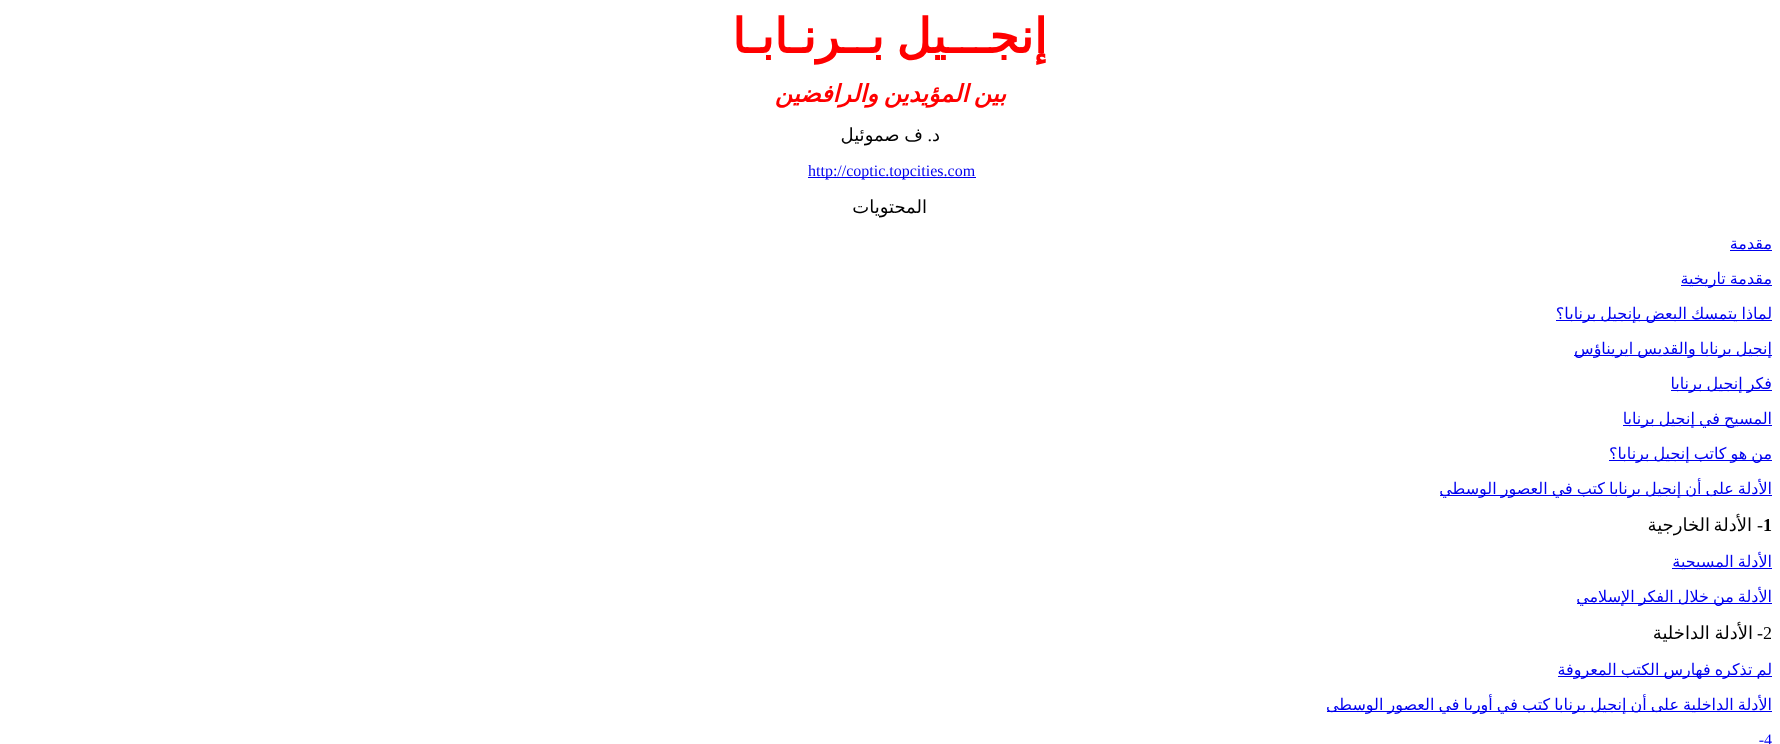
async function draw(canvas) {
	canvas.width = 1780;
	canvas.height = 744;
	const c = canvas.getContext('2d');
	c.miterLimit = 4;
	c.fontKerning = 'normal';

	c.fillStyle = '#fff';
	c.fillRect(0, 0, 1780, 744);
	c.wordSpacing = '-3px';
	c.direction = 'rtl';
	c.font = 'bold 48px DejaVu Sans';
	c.fillStyle = '#f00';
	c.fillText('إنجـــيل بــرنـابـا', 1047, 53);
	c.wordSpacing = '-2px';
	c.font = 'italic bold 24px DejaVu Sans';
	c.fillText('بين المؤيدين والرافضين', 1006, 102);
	c.wordSpacing = '0px';
	c.font = '18px DejaVu Sans';
	c.fillStyle = '#000';
	c.fillText('د', 940, 141);
	c.font = '18px Liberation Serif';
	c.fillText('.', 932, 141);
	c.wordSpacing = '-1px';
	c.font = '18px DejaVu Sans';
	c.fillText('ف صموئيل', 923, 141);
	c.fillStyle = '#00e';
	c.fillRect(808, 177, 168, 1);
	c.wordSpacing = '0px';
	c.direction = 'ltr';
	c.font = '16px Liberation Serif';
	c.fillText('http://coptic.topcities.com', 808, 176);
	c.direction = 'rtl';
	c.font = '18px DejaVu Sans';
	c.fillStyle = '#000';
	c.fillText('المحتويات', 927, 213);
	c.font = '16px DejaVu Sans';
	c.fillStyle = '#00e';
	c.fillText('مقدمة', 1772, 249);
	c.fillRect(1730, 250, 42, 1);
	c.fillRect(1681, 285, 91, 1);
	c.wordSpacing = '-1px';
	c.fillText('مقدمة تاريخية', 1772, 284);
	c.fillRect(1556, 320, 216, 1);
	c.fillText('لماذا يتمسك البعض بإنجيل برنابا؟', 1772, 319);
	c.fillRect(1574, 355, 198, 1);
	c.fillText('إنجيل برنابا والقديس ايريناؤس', 1772, 354);
	c.fillRect(1671, 390, 101, 1);
	c.fillText('فكر إنجيل برنابا', 1772, 389);
	c.fillRect(1623, 425, 149, 1);
	c.fillText('المسيح في إنجيل برنابا', 1772, 424);
	c.fillRect(1609, 460, 163, 1);
	c.fillText('من هو كاتب إنجيل برنابا؟', 1772, 459);
	c.fillRect(1440, 495, 332, 1);
	c.fillText('الأدلة على أن إنجيل برنابا كتب في العصور الوسطي', 1772, 494);
	c.wordSpacing = '0px';
	c.direction = 'ltr';
	c.font = 'bold 18px Liberation Serif';
	c.fillStyle = '#000';
	c.fillText('1', 1763, 531);
	c.direction = 'rtl';
	c.font = '18px Liberation Serif';
	c.fillText('-', 1763, 531);
	c.font = '18px DejaVu Sans';
	c.fillText('الأدلة', 1752, 531);
	c.fillText('الخارجية', 1710, 531);
	c.fillStyle = '#00e';
	c.fillRect(1672, 568, 100, 1);
	c.wordSpacing = '-1px';
	c.font = '16px DejaVu Sans';
	c.fillText('الأدلة المسيحية', 1772, 567);
	c.fillRect(1577, 603, 195, 1);
	c.fillText('الأدلة من خلال الفكر الإسلامي', 1772, 602);
	c.wordSpacing = '0px';
	c.direction = 'ltr';
	c.font = '18px Liberation Serif';
	c.fillStyle = '#000';
	c.fillText('2', 1763, 639);
	c.direction = 'rtl';
	c.fillText('-', 1763, 639);
	c.wordSpacing = '-1px';
	c.font = '18px DejaVu Sans';
	c.fillText('الأدلة الداخلية', 1753, 639);
	c.fillStyle = '#00e';
	c.fillRect(1558, 676, 214, 1);
	c.font = '16px DejaVu Sans';
	c.fillText('لم تذكره فهارس الكتب المعروفة', 1772, 675);
	c.fillRect(1327, 711, 445, 1);
	c.fillText('الأدلة الداخلية على أن إنجيل برنابا كتب في أوربا في العصور الوسطى', 1772, 710);
	c.wordSpacing = '0px';
	c.direction = 'ltr';
	c.font = '16px Liberation Serif';
	c.fillText('4', 1764, 745);
	c.direction = 'rtl';
	c.fillText('-', 1764, 745);
}

draw(document.querySelector('canvas'));
